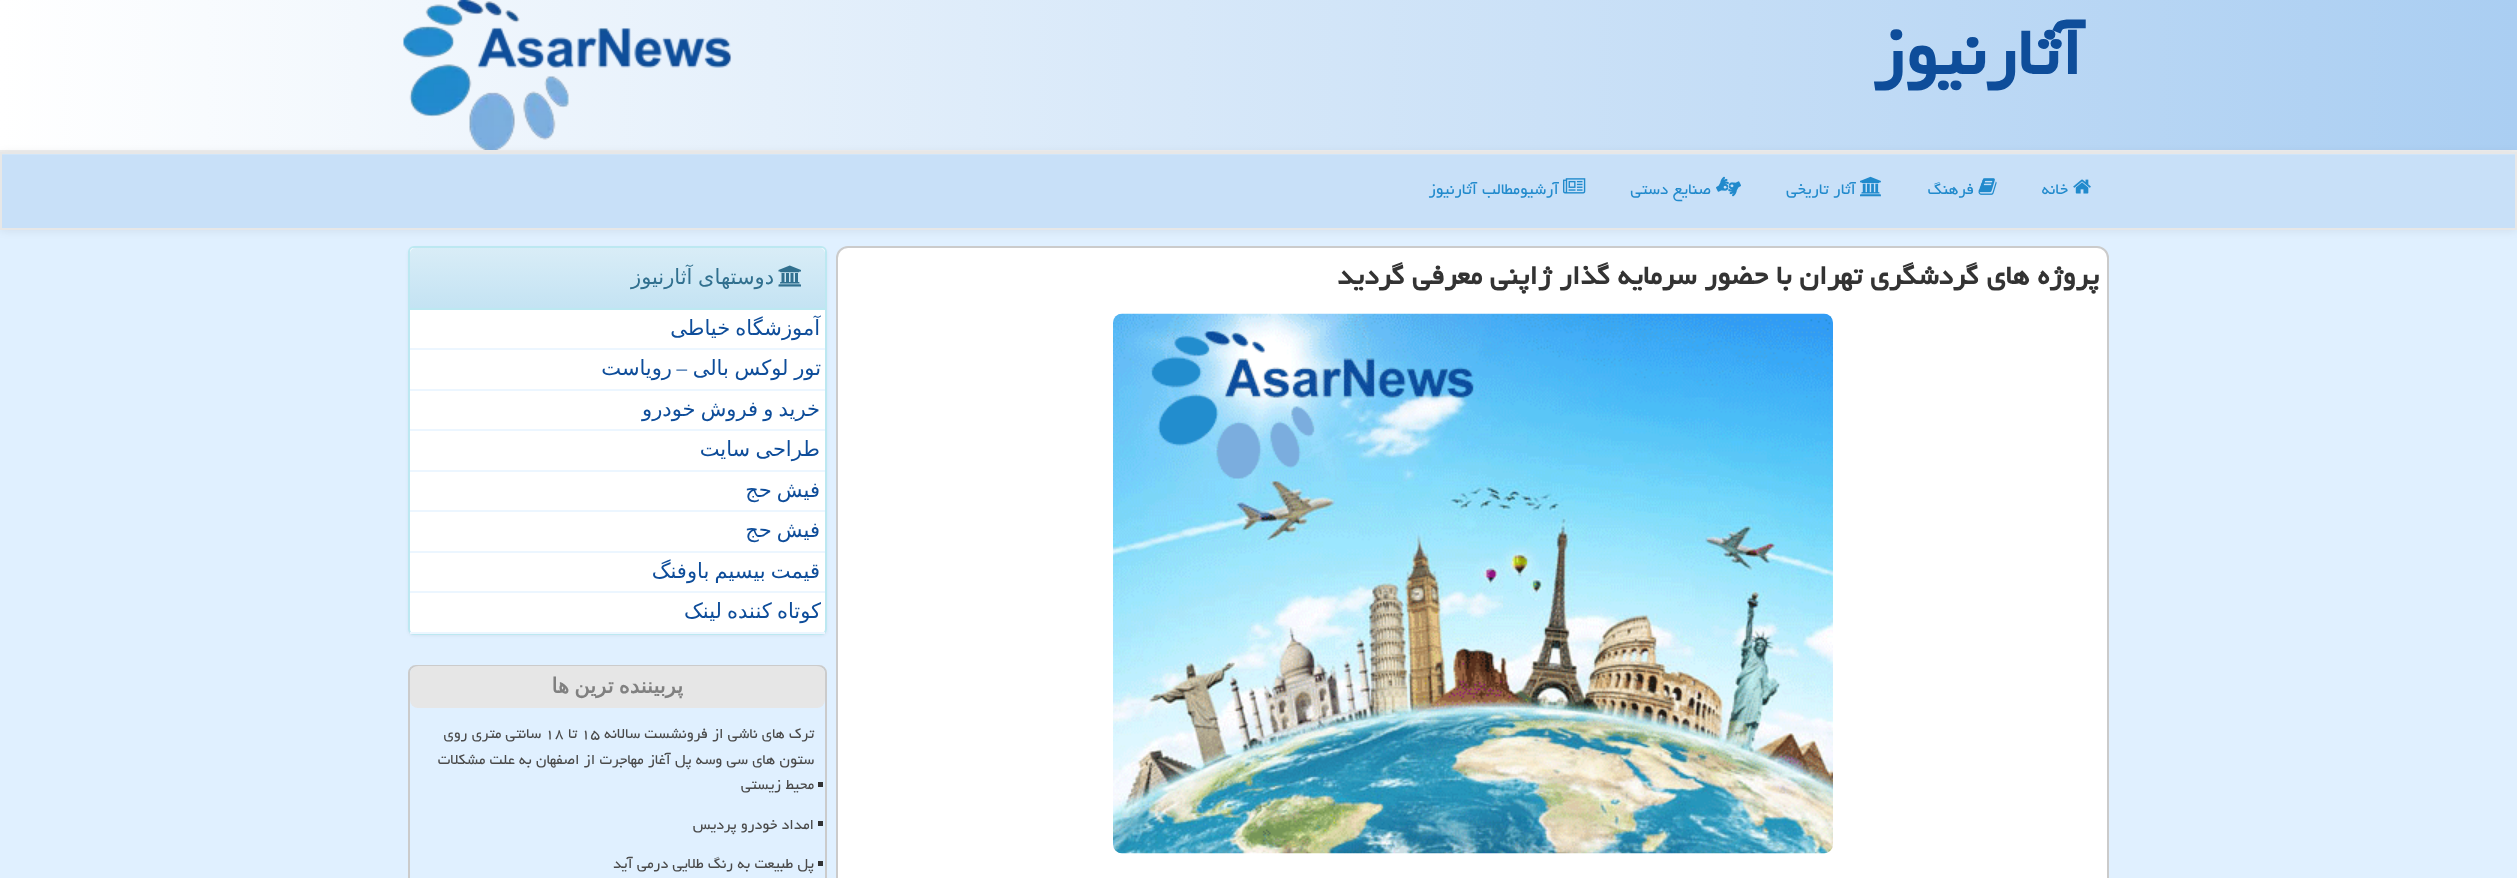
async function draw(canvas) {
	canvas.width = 2517;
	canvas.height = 878;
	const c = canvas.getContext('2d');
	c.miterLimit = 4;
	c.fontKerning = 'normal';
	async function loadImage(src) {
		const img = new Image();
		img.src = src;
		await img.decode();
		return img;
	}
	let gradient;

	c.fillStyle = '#e0f0ff';
	c.fillRect(0, 0, 2517, 878);
	gradient = c.createLinearGradient(0, 75, 2517, 75);
	gradient.addColorStop(0, '#fff');
	gradient.addColorStop(1, '#aacef2');
	c.fillStyle = gradient;
	c.fillRect(0, 0, 2517, 150);
	c.fillStyle = '#eee';
	c.fillRect(0, 150, 2517, 2);
	c.direction = 'rtl';
	c.font = 'bold 84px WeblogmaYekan';
	c.fillStyle = '#0e4d9a';
	c.fillText('آثارنیوز', 2083, 74);
	c.drawImage(await loadImage('img1.png'), 403, 0, 329, 150);
	c.fillStyle = '#00000012';
	c.filter = 'blur(4px)';
	c.beginPath();
	c.rect(0, 153, 2517, 78);
	c.fill();
	c.filter = 'none';
	c.fillStyle = '#c8e0f8';
	c.fillRect(2, 155, 2513, 73);
	c.fillStyle = '#d0e5f9';
	c.fillRect(2, 154, 2514, 1);
	c.strokeStyle = '#e7e7e7';
	c.lineWidth = 2;
	c.strokeRect(1, 153, 2515, 76);
	c.drawImage(await loadImage('img2.png'), 2073, 179, 18, 15);
	c.font = '19.5px WeblogmaYekan';
	c.fillStyle = '#218acc';
	c.fillText('خانه', 2068, 194);
	c.drawImage(await loadImage('img3.png'), 1978, 178, 19, 17);
	c.fillText('فرهنگ', 1974, 194);
	c.drawImage(await loadImage('img4.png'), 1860, 176, 21, 21);
	c.fillText('آثار تاریخی', 1856, 194);
	c.drawImage(await loadImage('img5.png'), 1716, 176, 25, 21);
	c.fillText('صنایع دستی', 1711, 194);
	c.drawImage(await loadImage('img6.png'), 1563, 178, 23, 16);
	c.fillText('آرشیومطالب آثارنیوز', 1559, 194);
	c.fillStyle = '#fff';
	c.beginPath();
	c.roundRect(837, 247, 1271, 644, 11);
	c.fill();
	c.strokeStyle = '#cbcbcb';
	c.stroke();
	c.font = 'bold 33.6px WeblogmaYekan';
	c.fillStyle = '#333';
	c.fillText('پروژه های گردشگری تهران با حضور سرمایه گذار ژاپنی معرفی گردید', 2099, 284);
	c.drawImage(await loadImage('img7.png'), 1113, 313, 720, 541);
	c.fillStyle = '#0000000d';
	c.filter = 'blur(1.5px)';
	c.beginPath();
	c.roundRect(408, 248, 419, 388, 6);
	c.fill();
	c.filter = 'none';
	c.fillStyle = '#fff';
	c.beginPath();
	c.roundRect(409, 247, 417, 387, 5);
	c.fill();
	c.strokeStyle = '#bce8f1';
	c.stroke();
	gradient = c.createLinearGradient(617, 247, 617, 308);
	gradient.addColorStop(0, '#d9edf7');
	gradient.addColorStop(1, '#c4e3f3');
	c.fillStyle = gradient;
	c.beginPath();
	c.roundRect(410, 248, 415, 60, [5, 5, 0, 0]);
	c.fill();
	c.fillStyle = '#bce8f1';
	c.fillRect(410, 308, 415, 2);
	c.drawImage(await loadImage('img8.png'), 778, 265, 23, 22);
	c.wordSpacing = '-1px';
	c.font = '21px DejaVu Sans';
	c.fillStyle = '#31708f';
	c.fillText('دوستهای آثارنیوز', 774, 284);
	c.fillStyle = '#ecf6ff';
	c.fillRect(410, 348, 415, 2);
	c.wordSpacing = '-1.5px';
	c.fillStyle = '#0e4d9a';
	c.fillText('آموزشگاه خیاطی', 820, 335);
	c.fillStyle = '#ecf6ff';
	c.fillRect(410, 389, 415, 2);
	c.wordSpacing = '-1px';
	c.fillStyle = '#0e4d9a';
	c.fillText('تور لوکس بالی', 821, 375);
	c.wordSpacing = '0px';
	c.font = '21px Liberation Serif';
	c.fillText('–', 687, 375);
	c.font = '21px DejaVu Sans';
	c.fillText('رویاست', 672, 375);
	c.fillStyle = '#ecf6ff';
	c.fillRect(410, 429, 415, 2);
	c.wordSpacing = '-1.5px';
	c.fillStyle = '#0e4d9a';
	c.fillText('خرید و فروش خودرو', 820, 416);
	c.fillStyle = '#ecf6ff';
	c.fillRect(410, 470, 415, 2);
	c.fillStyle = '#0e4d9a';
	c.fillText('طراحی سایت', 820, 456);
	c.fillStyle = '#ecf6ff';
	c.fillRect(410, 510, 415, 2);
	c.fillStyle = '#0e4d9a';
	c.fillText('فیش حج', 820, 497);
	c.fillStyle = '#ecf6ff';
	c.fillRect(410, 551, 415, 2);
	c.fillStyle = '#0e4d9a';
	c.fillText('فیش حج', 820, 537);
	c.fillStyle = '#ecf6ff';
	c.fillRect(410, 591, 415, 2);
	c.fillStyle = '#0e4d9a';
	c.fillText('قیمت بیسیم باوفنگ', 820, 578);
	c.fillStyle = '#ecf6ff';
	c.fillRect(410, 632, 415, 2);
	c.fillStyle = '#0e4d9a';
	c.fillText('کوتاه کننده لینک', 821, 618);
	c.beginPath();
	c.roundRect(409, 666, 417, 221, 7);
	c.strokeStyle = '#cbcbcb';
	c.stroke();
	c.fillStyle = '#e6e6e6';
	c.beginPath();
	c.roundRect(410, 666, 415, 42, 8);
	c.fill();
	c.font = 'bold 21px DejaVu Sans';
	c.fillStyle = '#808080';
	c.fillText('پربیننده ترین ها', 683, 693);
	c.fillStyle = '#333';
	c.fillRect(818, 782, 5, 5);
	c.wordSpacing = '0px';
	c.font = '18px WeblogmaYekan';
	c.fillStyle = '#4a4a4a';
	c.fillText('ترک های ناشی از فرونشست سالانه', 814, 738);
	c.direction = 'ltr';
	c.fillText('۱۵', 581, 738);
	c.direction = 'rtl';
	c.fillText('تا', 577, 738);
	c.direction = 'ltr';
	c.fillText('۱۸', 545, 738);
	c.direction = 'rtl';
	for (const [text, x, y] of [
		['سانتی متری روی', 541, 738],
		['ستون های سی وسه پل آغاز مهاجرت از اصفهان به علت مشکلات', 814, 764],
		['محیط زیستی', 814, 789],
	]) {
		c.fillText(text, x, y);
	}
	c.fillStyle = '#333';
	c.fillRect(818, 821, 5, 5);
	c.fillStyle = '#4a4a4a';
	c.fillText('امداد خودرو پردیس', 814, 829);
	c.fillStyle = '#333';
	c.fillRect(818, 861, 5, 5);
	c.fillStyle = '#4a4a4a';
	c.fillText('پل طبیعت به رنگ طلایی درمی آید', 814, 868);
}

draw(document.querySelector('canvas'));
